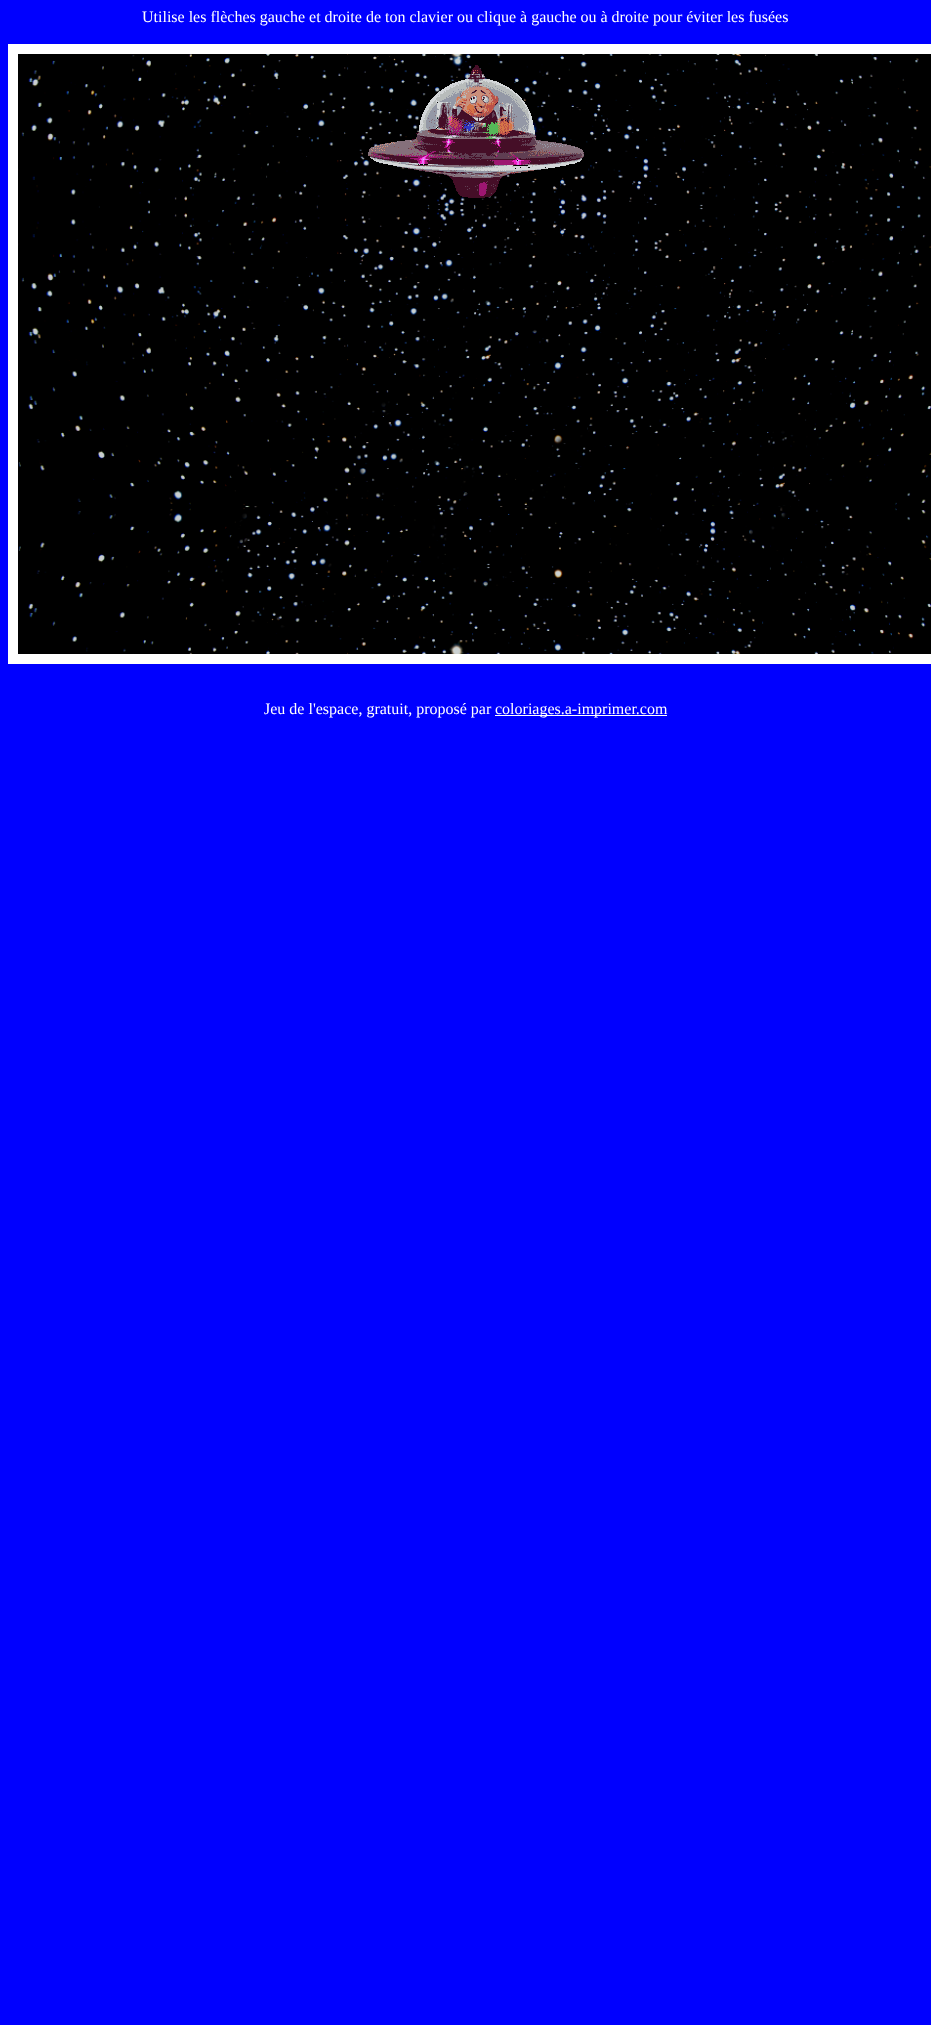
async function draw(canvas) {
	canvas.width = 931;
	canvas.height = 2025;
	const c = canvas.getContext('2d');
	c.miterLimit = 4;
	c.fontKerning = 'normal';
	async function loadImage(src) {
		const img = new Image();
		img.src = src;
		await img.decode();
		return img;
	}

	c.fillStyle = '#00f';
	c.fillRect(0, 0, 931, 2025);
	c.font = '16px Liberation Serif';
	c.fillStyle = '#fff';
	c.fillText('Utilise les flèches gauche et droite de ton clavier ou clique à gauche ou à droite pour éviter les fusées', 142, 22);
	c.strokeStyle = '#fff';
	c.lineWidth = 10;
	c.strokeRect(13, 49, 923, 610);
	c.drawImage(await loadImage('img1.png'), 18, 54, 913, 452);
	c.drawImage(await loadImage('img2.png'), 368, 65, 216, 133);
	c.drawImage(await loadImage('img3.png'), 18, 506, 913, 148);
	c.fillText('Jeu de l\'espace, gratuit, proposé par', 264, 714);
	c.fillRect(495, 715, 172, 1);
	c.fillText('coloriages.a-imprimer.com', 495, 714);
}

draw(document.querySelector('canvas'));
